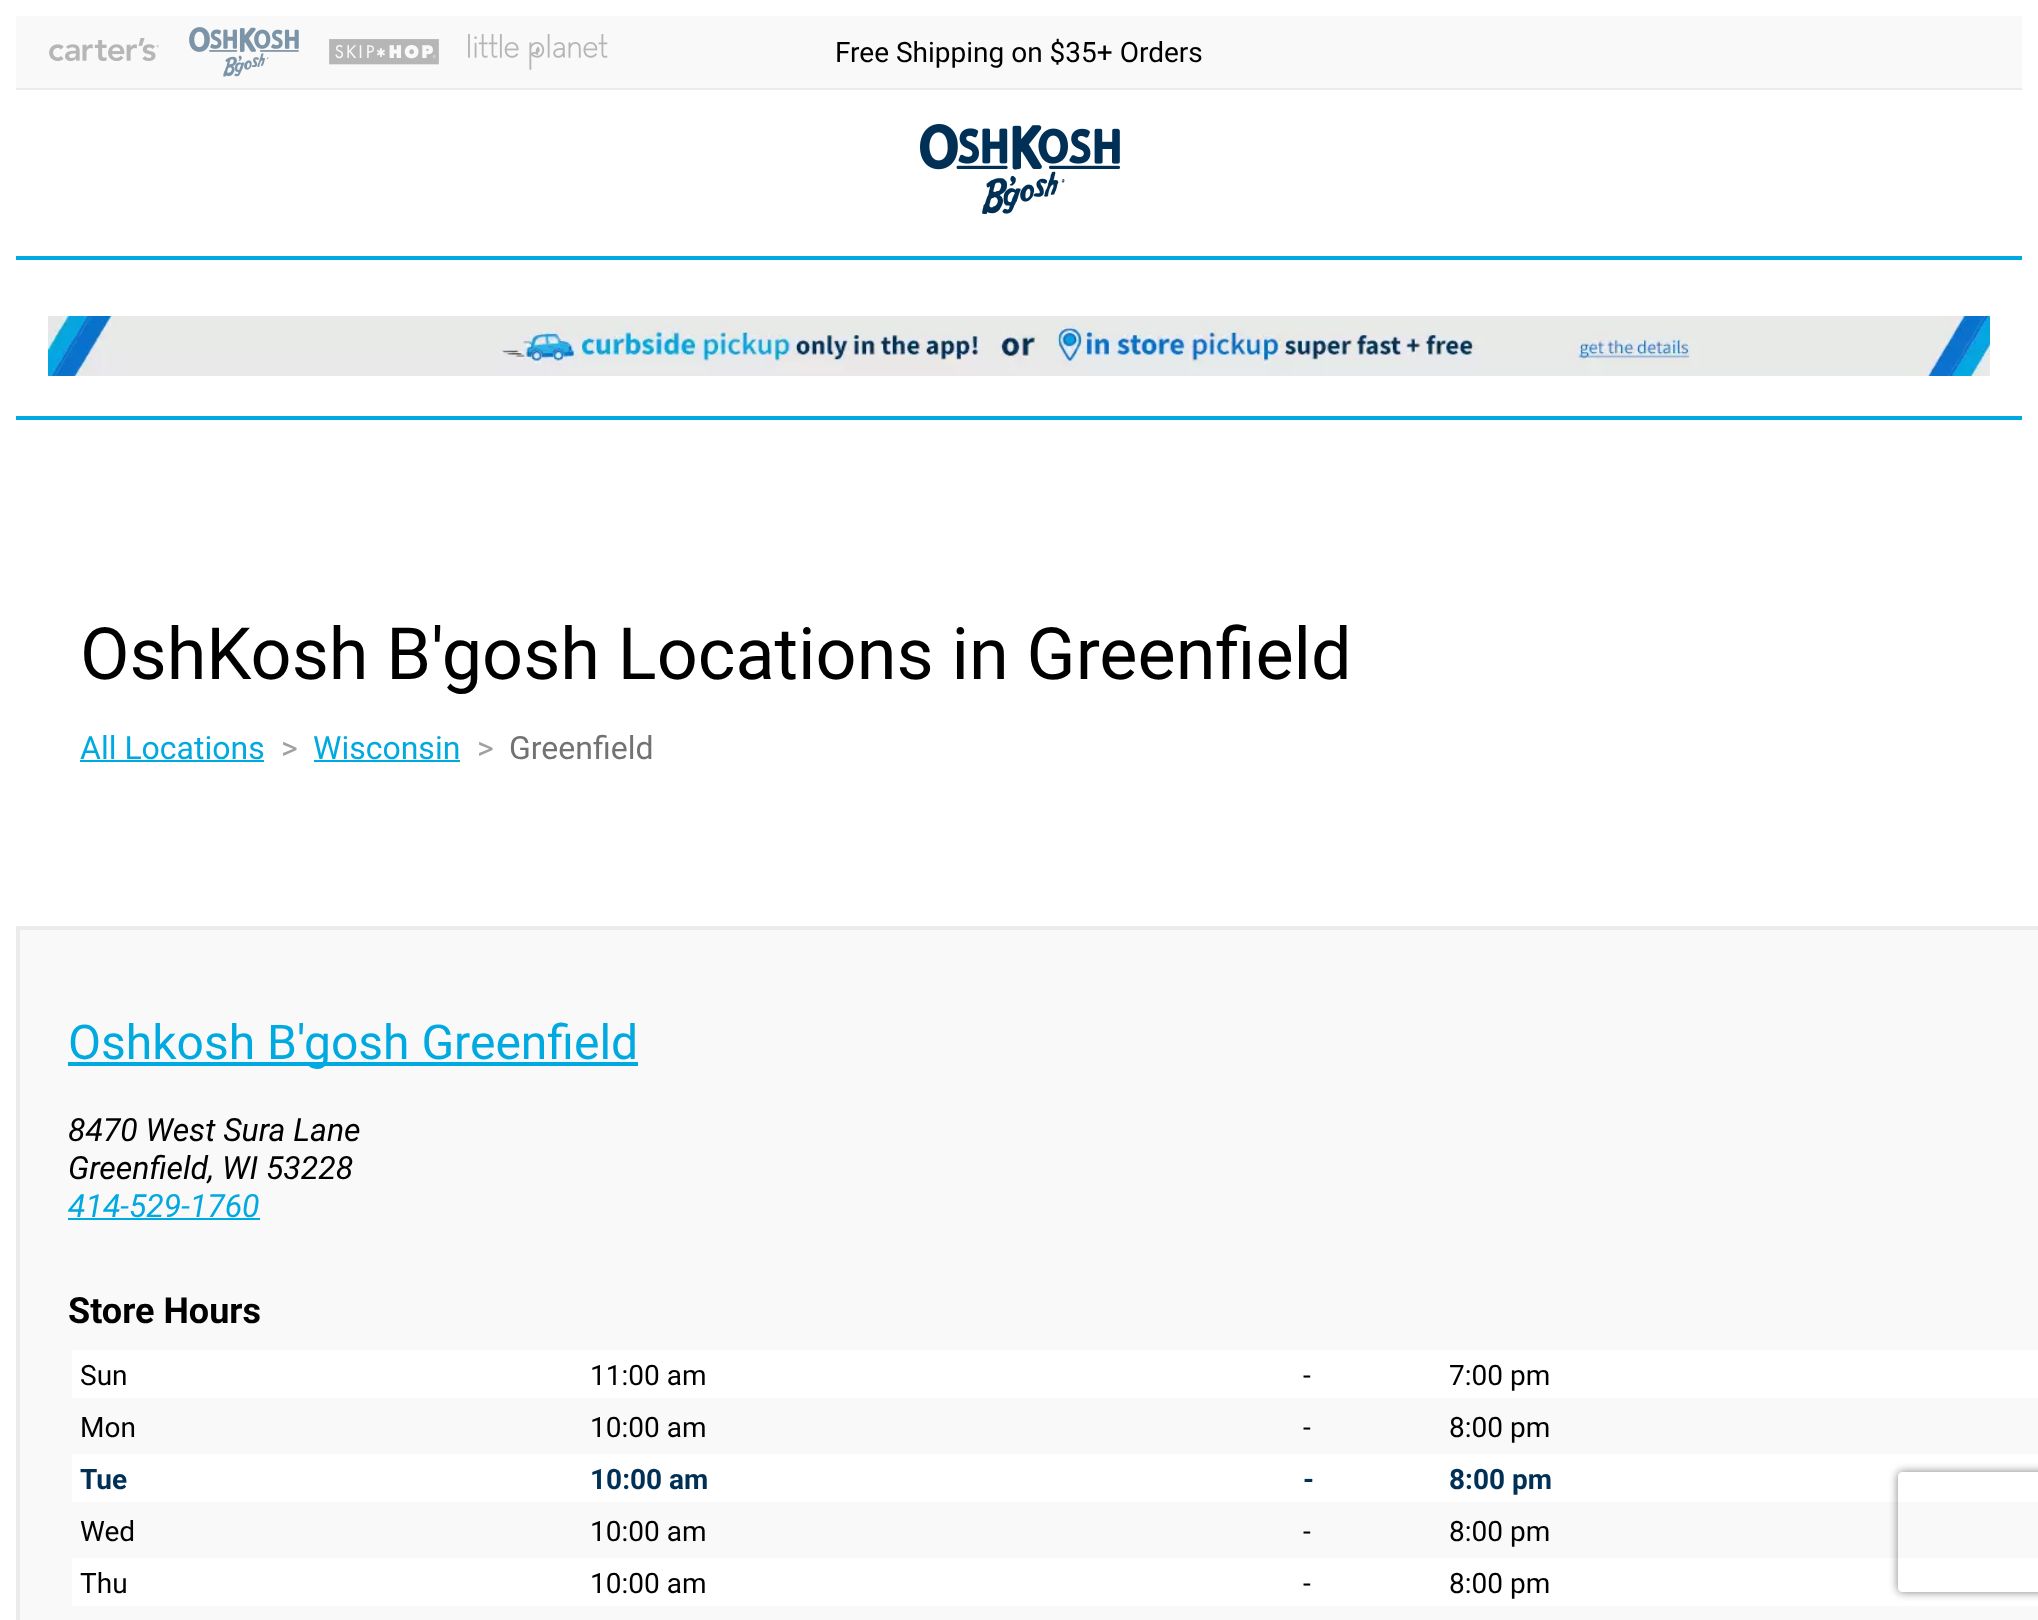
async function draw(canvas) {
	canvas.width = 2038;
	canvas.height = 1620;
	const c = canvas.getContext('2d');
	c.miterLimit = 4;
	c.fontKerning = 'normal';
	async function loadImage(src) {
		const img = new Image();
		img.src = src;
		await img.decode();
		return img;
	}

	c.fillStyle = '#fff';
	c.fillRect(0, 0, 2038, 1620);
	c.fillStyle = '#f9f9f9';
	c.fillRect(16, 16, 2006, 72);
	c.fillStyle = '#ebebeb';
	c.fillRect(16, 88, 2006, 2);
	c.drawImage(await loadImage('img1.png'), 49, 38, 110, 23);
	c.drawImage(await loadImage('img2.png'), 189, 27, 110, 50);
	c.drawImage(await loadImage('img3.png'), 329, 39, 110, 26);
	c.drawImage(await loadImage('img4.png'), 468, 34, 140, 36);
	c.font = '28px Roboto';
	c.fillStyle = '#000';
	c.fillText('Free Shipping on $35+ Orders', 835, 62);
	c.drawImage(await loadImage('img5.png'), 920, 124, 200, 90);
	c.fillStyle = '#00a9e0';
	c.fillRect(16, 256, 2006, 4);
	c.drawImage(await loadImage('img6.png'), 48, 316, 1942, 60);
	c.fillRect(16, 416, 2006, 4);
	c.font = '72px Roboto';
	c.fillStyle = '#000';
	c.fillText('OshKosh B\'gosh Locations in Greenfield', 80, 679);
	c.font = '32px Roboto';
	c.fillStyle = '#00a9e0';
	c.fillText('All Locations', 80, 759);
	c.fillRect(80, 760, 184, 2);
	c.fillStyle = '#a0a0a0';
	c.fillText('>', 281, 759);
	c.fillStyle = '#00a9e0';
	c.fillText('Wisconsin', 313, 759);
	c.fillRect(314, 760, 146, 2);
	c.fillStyle = '#a0a0a0';
	c.fillText('>', 477, 759);
	c.fillStyle = '#727274';
	c.fillText('Greenfield', 509, 759);
	c.fillStyle = '#f9f9f9';
	c.beginPath();
	c.rect(18, 928, 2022, 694);
	c.fill();
	c.strokeStyle = '#ebebeb';
	c.lineWidth = 4;
	c.stroke();
	c.fillStyle = '#00a9e0';
	c.fillRect(68, 1062, 570, 4);
	c.font = '48px Roboto';
	c.fillText('Oshkosh B\'gosh Greenfield', 68, 1059);
	c.font = 'italic 32px Roboto';
	c.fillStyle = '#000';
	c.fillText('8470 West Sura Lane', 68, 1141);
	c.fillText('Greenfield, WI 53228', 68, 1179);
	c.fillStyle = '#00a9e0';
	c.fillText('414-529-1760', 68, 1217);
	c.fillRect(68, 1218, 192, 2);
	c.font = 'bold 36px Roboto';
	c.fillStyle = '#000';
	c.fillText('Store Hours', 68, 1323);
	c.fillStyle = '#fff';
	c.fillRect(72, 1350, 1966, 48);
	c.font = '28px Roboto';
	c.fillStyle = '#000';
	for (const [text, x, y] of [
		['Sun', 80, 1385],
		['11:00 am', 590, 1385],
		['-', 1303, 1385],
		['7:00 pm', 1449, 1385],
		['Mon', 80, 1437],
		['10:00 am', 590, 1437],
		['-', 1303, 1437],
		['8:00 pm', 1449, 1437],
	]) {
		c.fillText(text, x, y);
	}
	c.fillStyle = '#fff';
	c.fillRect(72, 1454, 1966, 48);
	c.font = 'bold 28px Roboto';
	c.fillStyle = '#003056';
	for (const [text, x, y] of [
		['Tue', 80, 1489],
		['10:00 am', 590, 1489],
		['-', 1303, 1489],
		['8:00 pm', 1449, 1489],
	]) {
		c.fillText(text, x, y);
	}
	c.font = '28px Roboto';
	c.fillStyle = '#000';
	for (const [text, x, y] of [
		['Wed', 80, 1541],
		['10:00 am', 590, 1541],
		['-', 1303, 1541],
		['8:00 pm', 1449, 1541],
	]) {
		c.fillText(text, x, y);
	}
	c.fillStyle = '#fff';
	c.fillRect(72, 1558, 1966, 48);
	c.fillStyle = '#000';
	for (const [text, x, y] of [
		['Thu', 80, 1593],
		['10:00 am', 590, 1593],
		['-', 1303, 1593],
		['8:00 pm', 1449, 1593],
	]) {
		c.fillText(text, x, y);
	}
	c.save();
	c.beginPath();
	c.moveTo(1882, 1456);
	c.lineTo(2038, 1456);
	c.lineTo(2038, 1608);
	c.lineTo(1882, 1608);
	c.closePath();
	c.moveTo(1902, 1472);
	c.lineTo(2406, 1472);
	c.bezierCurveTo(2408, 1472, 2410, 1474, 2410, 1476);
	c.lineTo(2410, 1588);
	c.bezierCurveTo(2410, 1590, 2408, 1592, 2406, 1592);
	c.lineTo(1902, 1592);
	c.bezierCurveTo(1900, 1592, 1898, 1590, 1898, 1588);
	c.lineTo(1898, 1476);
	c.bezierCurveTo(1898, 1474, 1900, 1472, 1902, 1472);
	c.closePath();
	c.clip('evenodd');
	c.fillStyle = '#808080';
	c.filter = 'blur(5px)';
	c.beginPath();
	c.roundRect(1898, 1472, 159, 120, 4);
	c.fill();
	c.filter = 'none';
	c.restore();
}

draw(document.querySelector('canvas'));
